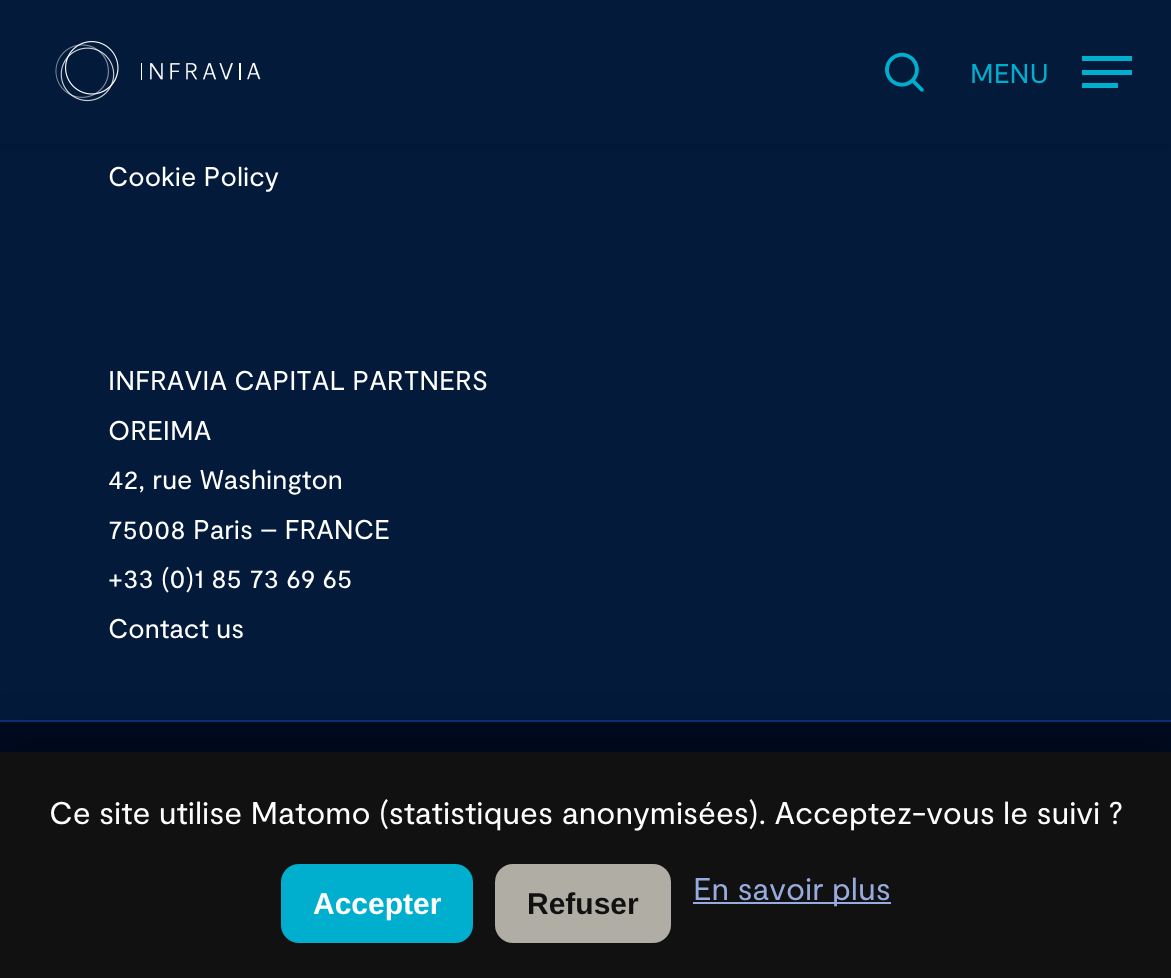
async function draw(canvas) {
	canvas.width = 1171;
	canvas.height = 978;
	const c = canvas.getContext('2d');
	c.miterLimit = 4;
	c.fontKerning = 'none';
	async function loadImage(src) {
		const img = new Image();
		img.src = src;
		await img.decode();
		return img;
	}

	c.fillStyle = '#031a3b';
	c.fillRect(0, 0, 1171, 978);
	c.fillStyle = '#00000038';
	c.filter = 'blur(3.5px)';
	c.beginPath();
	c.rect(0, 0, 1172, 144);
	c.fill();
	c.filter = 'none';
	c.fillStyle = '#031a3b';
	c.fillRect(0, 0, 1171, 144);
	c.drawImage(await loadImage('img1.png'), 55, 41, 206, 61);
	c.drawImage(await loadImage('img2.png'), 885, 52, 39, 40);
	c.font = '27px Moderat';
	c.fillStyle = '#00afcd';
	c.fillText('MENU', 970, 83);
	for (const [x, y, w, h, color] of [
		[1082, 56, 50, 5, '#00afcd'],
		[1082, 83, 36, 5, '#00afcd'],
		[1082, 70, 50, 5, '#00afcd'],
	]) {
		c.fillStyle = color;
		c.fillRect(x, y, w, h);
	}
	c.fillStyle = '#fff';
	for (const [text, x, y] of [
		['Cookie Policy', 108, 186],
		['INFRAVIA CAPITAL PARTNERS', 108, 390],
		['OREIMA', 108, 440],
		['42, rue Washington', 108, 489],
		['75008 Paris – FRANCE', 108, 539],
		['+33 (0)1 85 73 69 65', 108, 588],
		['Contact us', 108, 638],
	]) {
		c.fillText(text, x, y);
	}
	c.fillStyle = '#000b21';
	c.fillRect(0, 722, 1171, 30);
	c.fillStyle = '#0c317c';
	c.fillRect(0, 720, 1171, 2);
	c.fillStyle = '#00000040';
	c.filter = 'blur(22.5px)';
	c.beginPath();
	c.rect(0, 738, 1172, 227);
	c.fill();
	c.filter = 'none';
	c.fillStyle = '#111';
	c.fillRect(0, 752, 1171, 226);
	c.font = '31.5px Moderat';
	c.fillStyle = '#fff';
	c.fillText('Ce site utilise Matomo (statistiques', 49, 824);
	c.fillText('anonymisées). Acceptez-vous', 562, 824);
	c.fillText('le suivi ?', 1003, 824);
	c.fillStyle = '#00afcd';
	c.beginPath();
	c.roundRect(281, 864, 192, 79, 18);
	c.fill();
	c.font = 'bold 30px Liberation Sans';
	c.fillStyle = '#fff';
	c.fillText('Accepter', 313, 914);
	c.fillStyle = '#b0ada4';
	c.beginPath();
	c.roundRect(495, 864, 176, 79, 18);
	c.fill();
	c.fillStyle = '#111';
	c.fillText('Refuser', 527, 914);
	c.fillStyle = '#9ad';
	c.fillRect(693, 902, 198, 2);
	c.font = '31.5px Moderat';
	c.fillText('En savoir plus', 693, 900);
}

draw(document.querySelector('canvas'));
